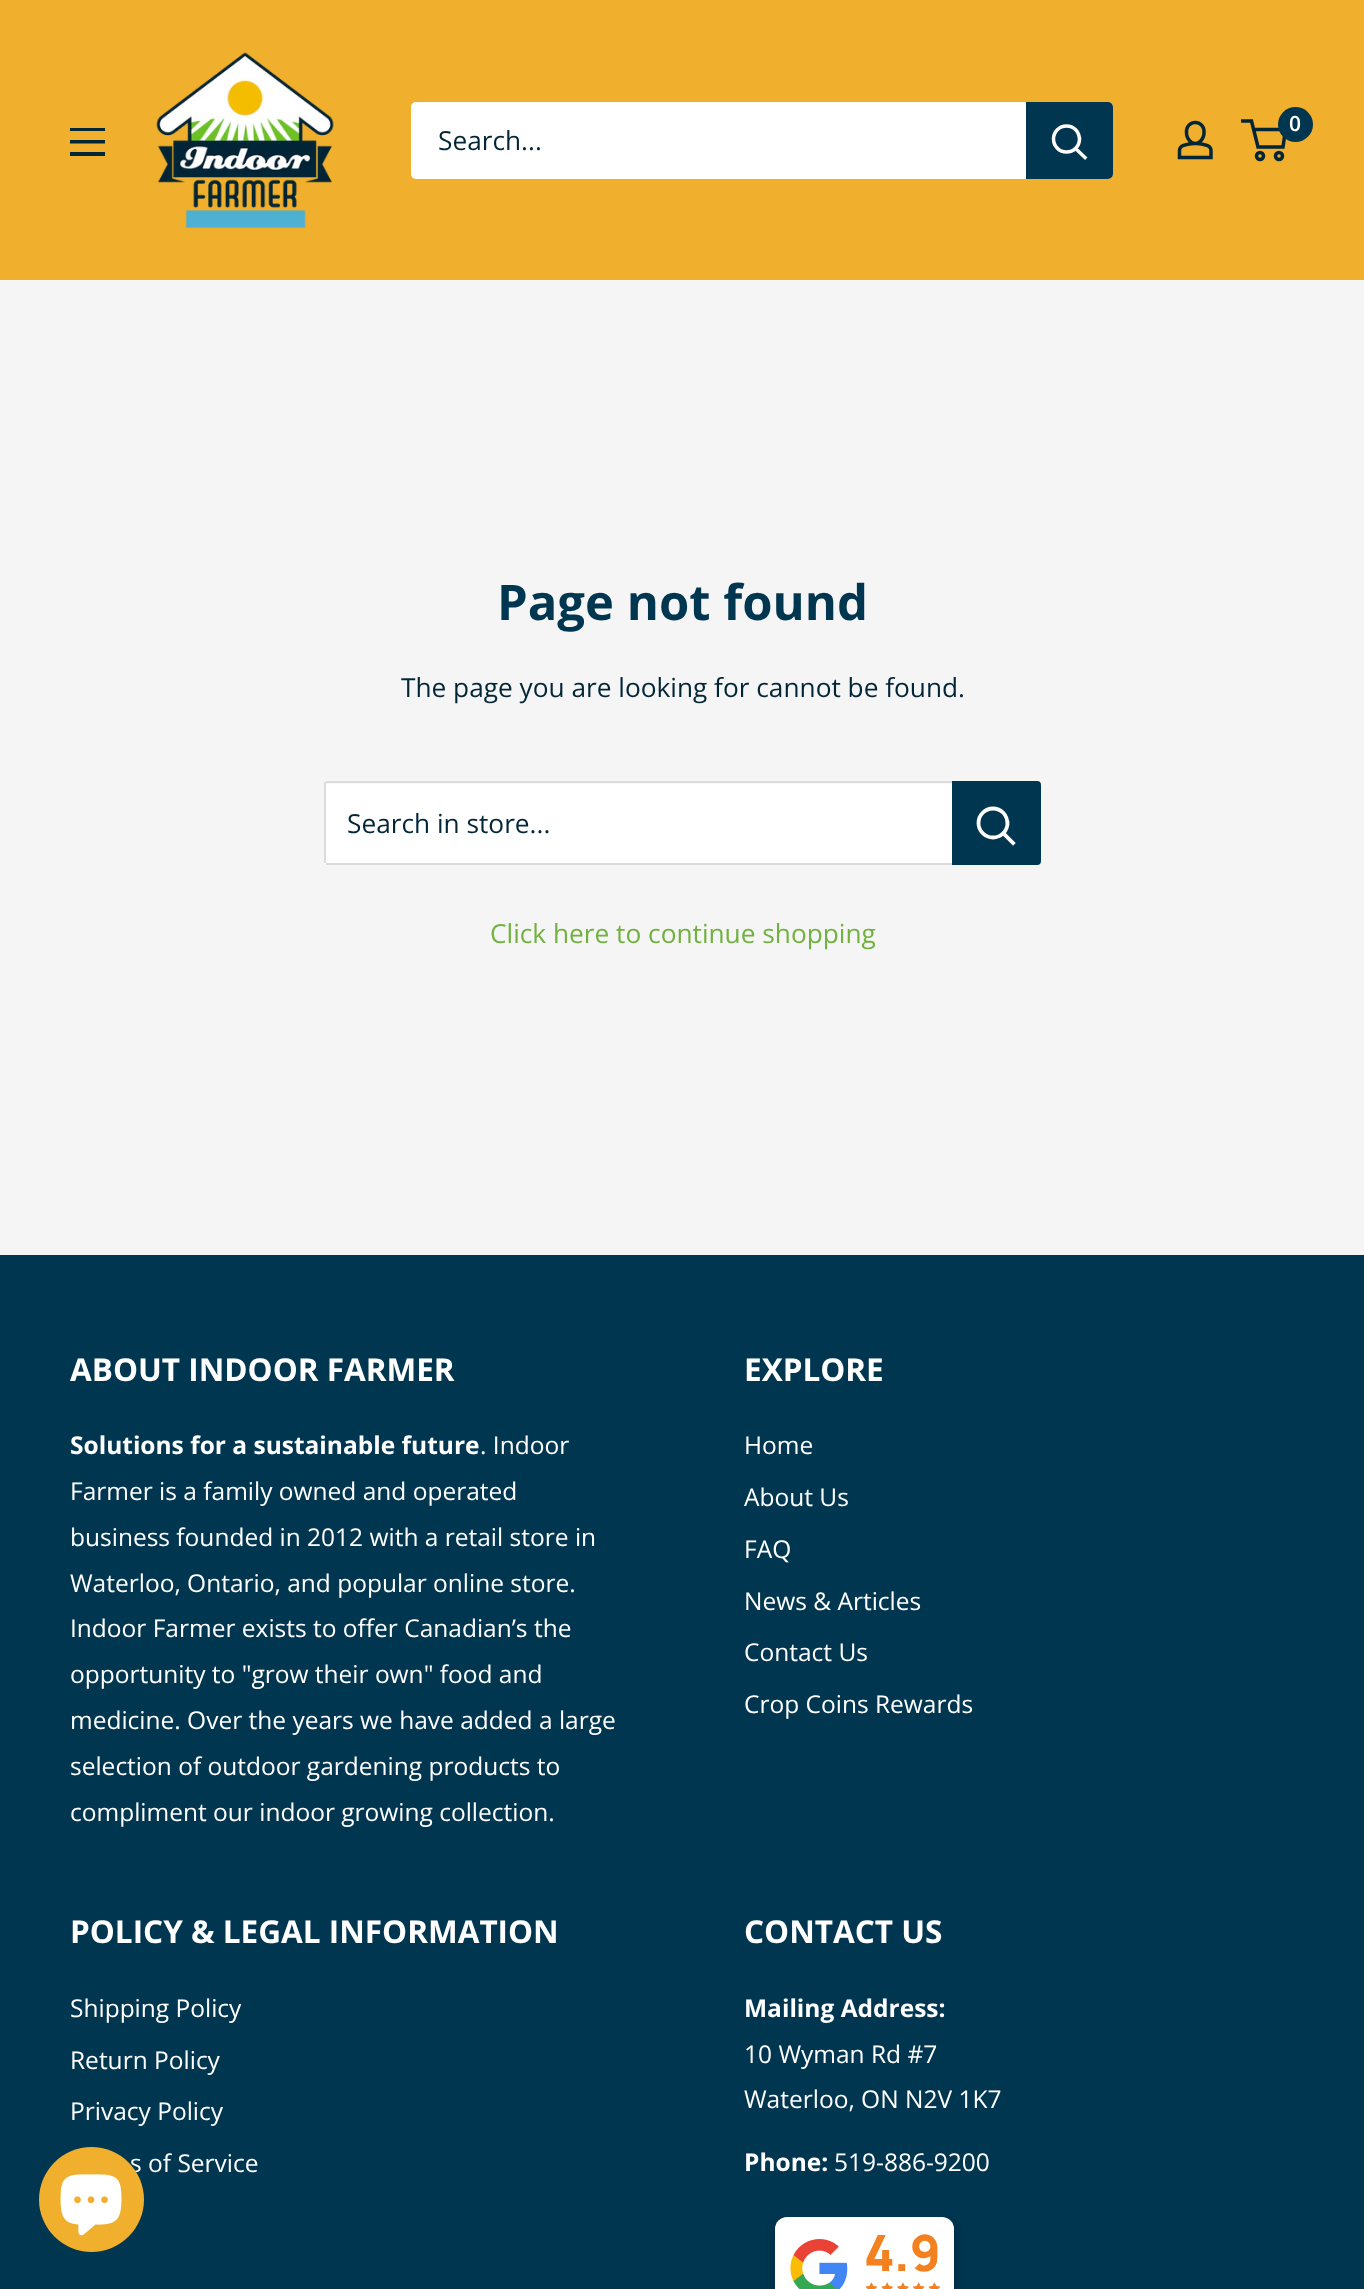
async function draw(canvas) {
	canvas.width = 1364;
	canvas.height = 2289;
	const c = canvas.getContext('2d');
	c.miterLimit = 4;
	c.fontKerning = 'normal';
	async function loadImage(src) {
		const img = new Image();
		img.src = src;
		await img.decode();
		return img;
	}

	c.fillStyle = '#f5f5f5';
	c.fillRect(0, 0, 1364, 2289);
	c.fillStyle = '#f0af2c';
	c.fillRect(0, 0, 1364, 280);
	c.drawImage(await loadImage('img1.png'), 156, 52, 178, 176);
	c.drawImage(await loadImage('img2.png'), 1177, 120, 36, 40);
	c.beginPath();
	c.arc(1260, 156, 3.5, 0, 2 * Math.PI);
	c.strokeStyle = '#032637';
	c.lineWidth = 3.5;
	c.stroke();
	c.beginPath();
	c.arc(1279, 156, 3.5, 0, 2 * Math.PI);
	c.stroke();
	c.beginPath();
	c.moveTo(1253.5, 129.5);
	c.lineTo(1285.5, 129.5);
	c.lineTo(1283, 147);
	c.lineTo(1258, 147);
	c.lineTo(1251.5, 121);
	c.lineTo(1241, 121);
	c.stroke();
	c.fillStyle = '#013650';
	c.beginPath();
	c.arc(1295.5, 124.5, 17.5, 0, 2 * Math.PI);
	c.fill();
	c.font = '600 21px Open Sans';
	c.fillStyle = '#fff';
	c.fillText('0', 1289, 131);
	c.fillStyle = '#032637';
	c.beginPath();
	c.moveTo(70, 152);
	c.lineTo(105, 152);
	c.lineTo(105, 156);
	c.lineTo(70, 156);
	c.closePath();
	c.moveTo(70, 128);
	c.lineTo(105, 128);
	c.lineTo(105, 131);
	c.lineTo(70, 131);
	c.closePath();
	c.moveTo(70, 140);
	c.lineTo(105, 140);
	c.lineTo(105, 143.5);
	c.lineTo(70, 143.5);
	c.closePath();
	c.fill('evenodd');
	c.fillStyle = '#fff';
	c.beginPath();
	c.roundRect(411, 102, 702, 77, 5);
	c.fill();
	c.font = '26.25px Open Sans';
	c.fillStyle = '#032637';
	c.fillText('Search...', 438, 150);
	c.fillStyle = '#013650';
	c.beginPath();
	c.roundRect(1026, 102, 87, 77, [0, 5, 5, 0]);
	c.fill();
	c.beginPath();
	c.moveTo(1085, 157.5);
	c.lineTo(1076, 149);
	c.strokeStyle = '#fff';
	c.lineCap = 'square';
	c.stroke();
	c.beginPath();
	c.arc(1066.5, 139, 13, 0, 2 * Math.PI);
	c.stroke();
	c.font = 'bold 49px Open Sans';
	c.fillText('Page not found', 497, 620);
	c.font = '26.25px Open Sans';
	c.fillStyle = '#032637';
	c.fillText('The page you are looking for cannot be found.', 401, 697);
	c.fillStyle = '#fff';
	c.beginPath();
	c.roundRect(324, 781, 628, 84, [4, 0, 0, 4]);
	c.fill();
	c.fillStyle = '#f9f9f9';
	c.beginPath();
	c.moveTo(327, 784);
	c.lineTo(952, 784);
	c.lineTo(952, 782);
	c.lineTo(328, 782);
	c.bezierCurveTo(327, 782, 326, 783, 326, 784);
	c.closePath();
	c.fill();
	for (const [x, y, w, h, color] of [
		[326, 781, 626, 2, '#dbdbdb'],
		[326, 863, 626, 2, '#dbdbdb'],
		[324, 782, 2, 81, '#dbdbdb'],
	]) {
		c.fillStyle = color;
		c.fillRect(x, y, w, h);
	}
	c.fillStyle = '#032637';
	c.fillText('Search in store...', 347, 833);
	c.fillStyle = '#013650';
	c.beginPath();
	c.roundRect(952, 781, 89, 84, [0, 4, 4, 0]);
	c.fill();
	c.beginPath();
	c.moveTo(1013, 843);
	c.lineTo(1003.5, 833.5);
	c.lineWidth = 3.8;
	c.stroke();
	c.beginPath();
	c.arc(993, 823, 14.5, 0, 2 * Math.PI);
	c.stroke();
	c.fillStyle = '#71b13f';
	c.fillText('Click here to continue shopping', 490, 943);
	c.fillStyle = '#013650';
	c.fillRect(0, 1255, 1364, 1034);
	c.font = 'bold 31.5px Open Sans';
	c.fillStyle = '#fff';
	c.fillText('ABOUT INDOOR FARMER', 70, 1381);
	c.font = 'bold 24.5px Open Sans';
	c.fillText('Solutions for a sustainable future', 70, 1454);
	c.font = '24.5px Open Sans';
	for (const [text, x, y] of [
		['. Indoor', 480, 1454],
		['Farmer is a family owned and operated', 70, 1500],
		['business founded in 2012 with a retail store in', 70, 1546],
		['Waterloo, Ontario, and popular online store.', 70, 1592],
		['Indoor Farmer exists to offer Canadian’s the', 70, 1637],
		['opportunity to "grow their own" food and', 70, 1683],
		['medicine. Over the years we have added a large', 70, 1729],
		['selection of outdoor gardening products to', 70, 1775],
		['compliment our indoor growing collection.', 70, 1821],
	]) {
		c.fillText(text, x, y);
	}
	c.font = 'bold 31.5px Open Sans';
	c.fillText('EXPLORE', 744, 1381);
	c.font = '24.5px Open Sans';
	for (const [text, x, y] of [
		['Home', 744, 1454],
		['About Us', 744, 1506],
		['FAQ', 744, 1558],
		['News & Articles', 744, 1610],
		['Contact Us', 744, 1661],
		['Crop Coins Rewards', 744, 1713],
	]) {
		c.fillText(text, x, y);
	}
	c.font = 'bold 31.5px Open Sans';
	c.fillText('POLICY & LEGAL INFORMATION', 70, 1943);
	c.font = '24.5px Open Sans';
	for (const [text, x, y] of [
		['Shipping Policy', 70, 2017],
		['Return Policy', 70, 2069],
		['Privacy Policy', 70, 2120],
		['s of Service', 130, 2172],
	]) {
		c.fillText(text, x, y);
	}
	c.font = 'bold 31.5px Open Sans';
	c.fillText('CONTACT US', 744, 1943);
	c.font = 'bold 24.5px Open Sans';
	c.fillText('Mailing Address:', 744, 2017);
	c.font = '24.5px Open Sans';
	c.fillText('10 Wyman Rd #7', 744, 2063);
	c.fillText('Waterloo, ON N2V 1K7', 744, 2108);
	c.font = 'bold 24.5px Open Sans';
	c.fillText('Phone:', 744, 2171);
	c.font = '24.5px Open Sans';
	c.fillText('519-886-9200', 834, 2171);
	c.fillStyle = '#00000042';
	c.filter = 'blur(4px)';
	c.beginPath();
	c.roundRect(775, 2221, 179, 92, 12);
	c.fill();
	c.filter = 'none';
	c.fillStyle = '#fff';
	c.beginPath();
	c.roundRect(775, 2217, 179, 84, 12);
	c.fill();
	c.drawImage(await loadImage('img3.png'), 790, 2239, 58, 50);
	c.font = '800 50px Manrope';
	c.fillStyle = '#f48120';
	c.fillText('4.9', 864, 2271);
	c.drawImage(await loadImage('img4.png'), 865, 2282, 13, 7);
	c.drawImage(await loadImage('img5.png'), 881, 2282, 12, 7);
	c.drawImage(await loadImage('img6.png'), 897, 2282, 12, 7);
	c.drawImage(await loadImage('img7.png'), 912, 2282, 13, 7);
	c.drawImage(await loadImage('img4.png'), 928, 2282, 13, 7);
	c.fillStyle = '#f0af2d';
	c.beginPath();
	c.arc(91.5, 2199.5, 52.5, 0, 2 * Math.PI);
	c.fill();
	c.drawImage(await loadImage('img8.png'), 60, 2174, 62, 62);
}

draw(document.querySelector('canvas'));
